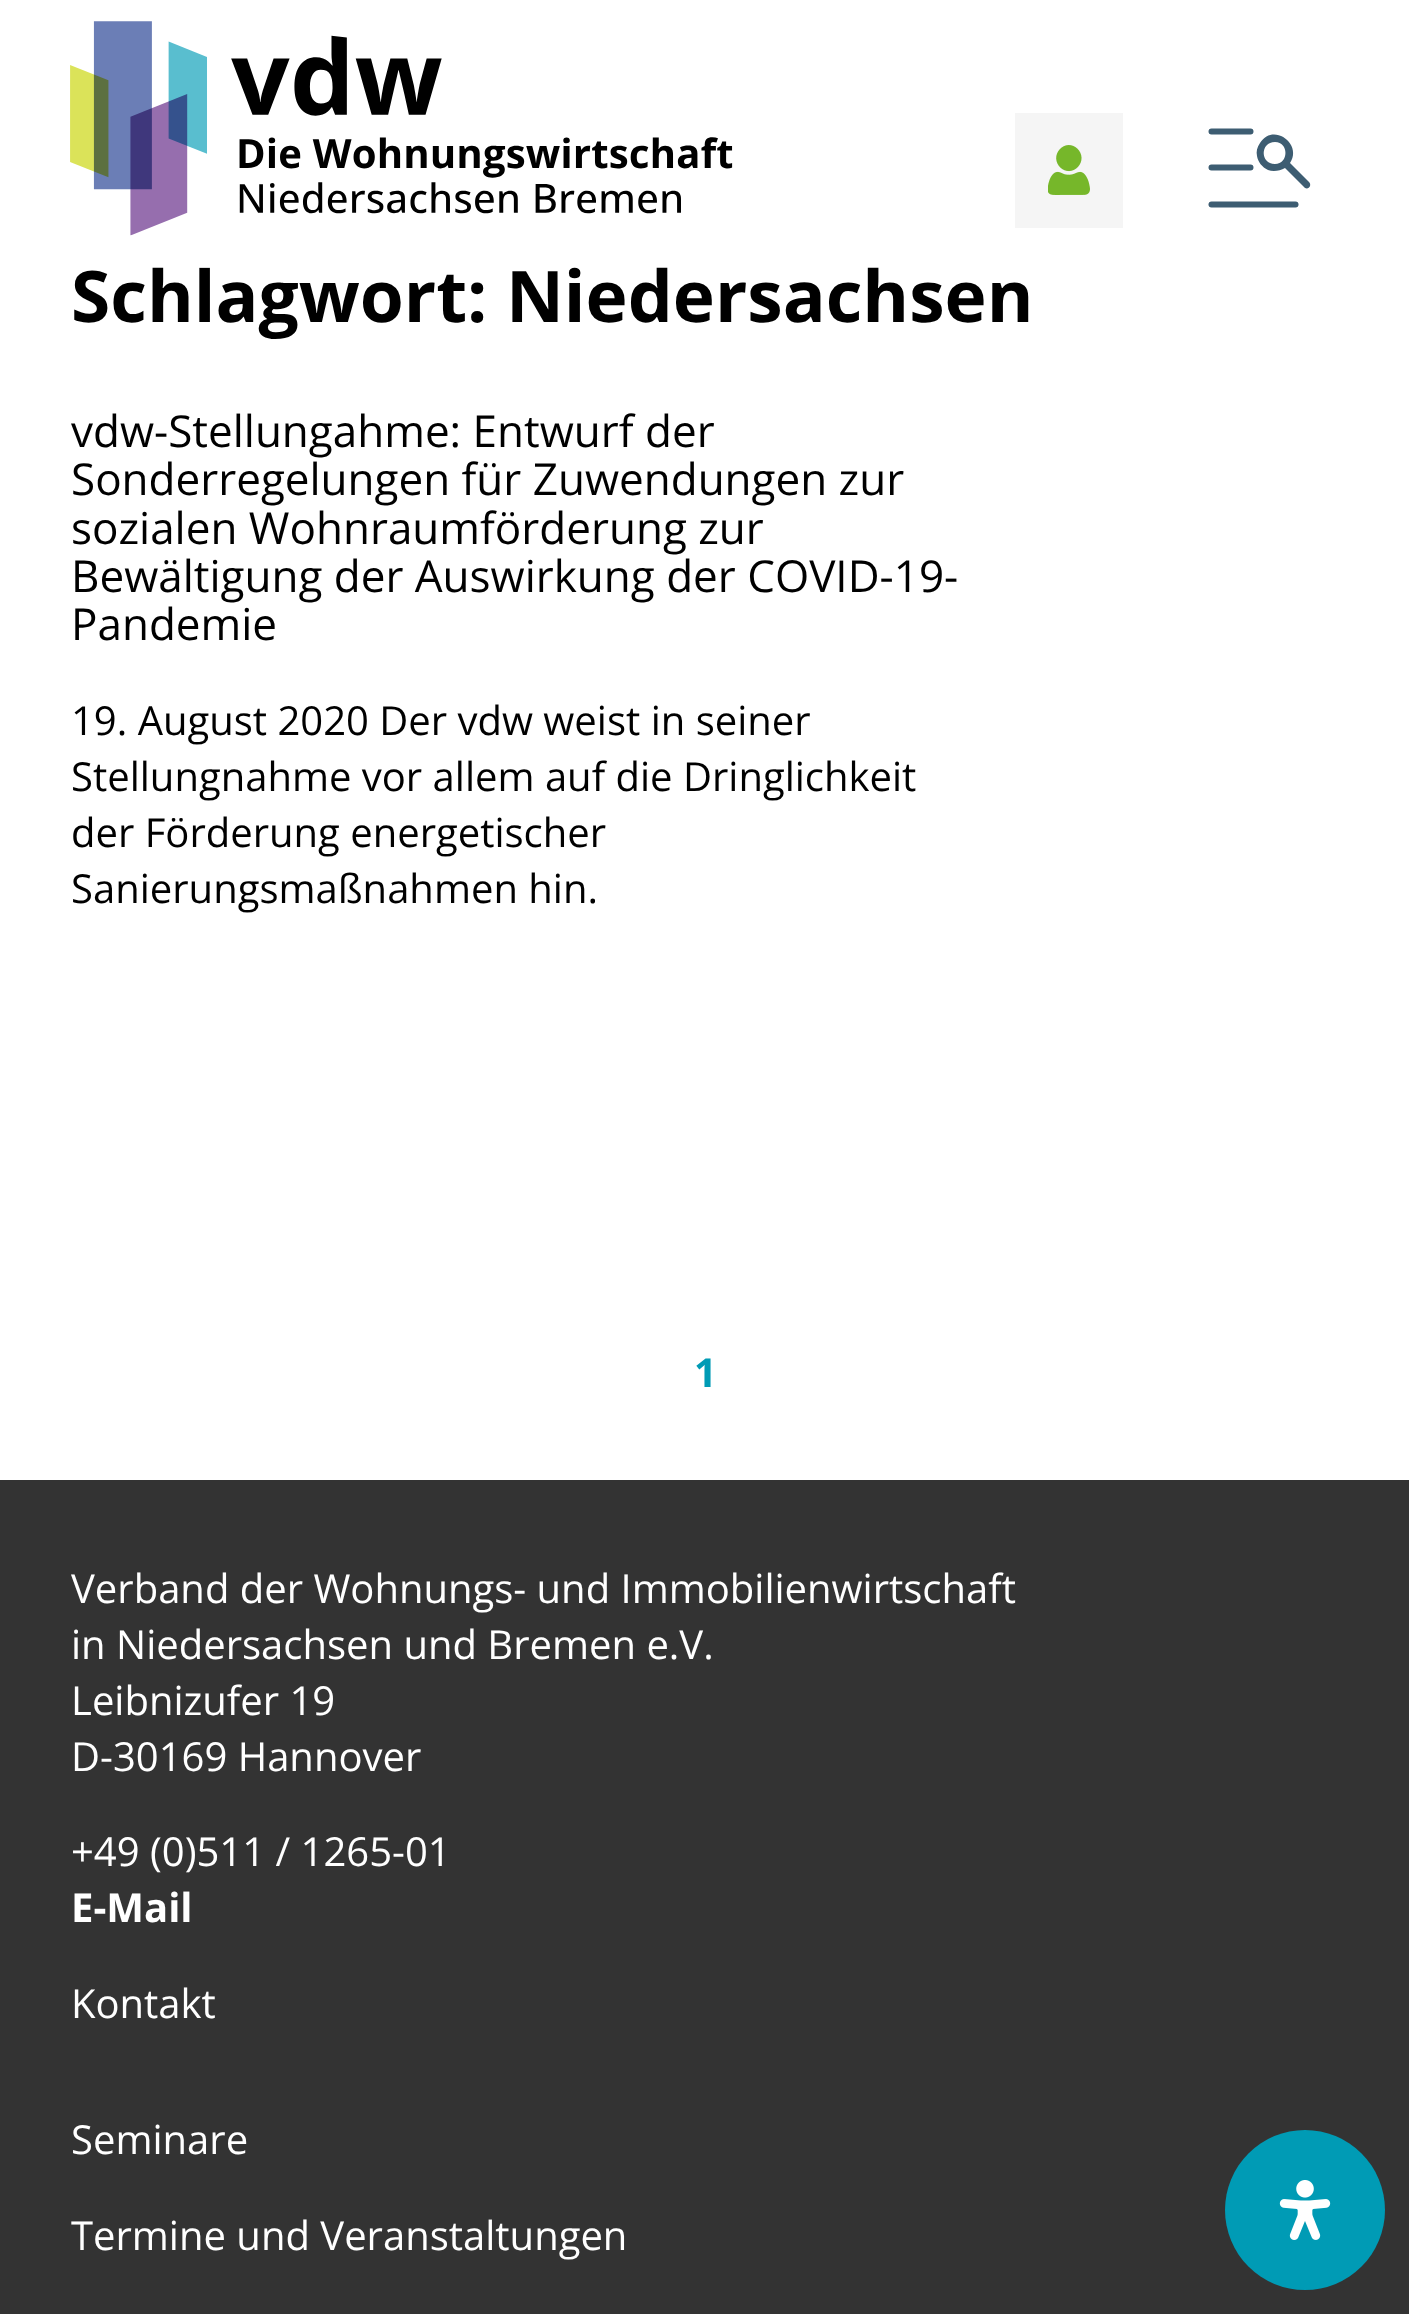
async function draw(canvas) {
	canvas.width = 1409;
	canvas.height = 2314;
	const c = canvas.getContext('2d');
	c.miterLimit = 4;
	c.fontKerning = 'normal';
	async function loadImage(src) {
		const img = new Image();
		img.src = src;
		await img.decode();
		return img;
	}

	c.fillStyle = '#fff';
	c.fillRect(0, 0, 1409, 2314);
	c.drawImage(await loadImage('img1.png'), 70, 21, 663, 215);
	c.fillStyle = '#f5f5f5';
	c.fillRect(1015, 113, 108, 115);
	c.drawImage(await loadImage('img2.png'), 1048, 145, 42, 50);
	c.beginPath();
	c.moveTo(1211.5, 131.5);
	c.lineTo(1250.5, 131.5);
	c.moveTo(1211.5, 167.5);
	c.lineTo(1250.5, 167.5);
	c.strokeStyle = '#3d5d72';
	c.lineWidth = 6;
	c.lineCap = 'round';
	c.stroke();
	c.fillStyle = '#3d5d72';
	c.beginPath();
	c.moveTo(1309, 182);
	c.lineTo(1290, 163);
	c.bezierCurveTo(1303, 144, 1273, 122, 1260, 143);
	c.bezierCurveTo(1257, 147, 1256, 152, 1257, 156);
	c.bezierCurveTo(1258, 162, 1262, 167, 1268, 170);
	c.bezierCurveTo(1273, 172, 1280, 171, 1285, 168);
	c.lineTo(1305, 188);
	c.bezierCurveTo(1309, 190, 1312, 185, 1309, 182);
	c.closePath();
	c.moveTo(1275, 164);
	c.bezierCurveTo(1260, 164, 1260, 142, 1275, 142);
	c.bezierCurveTo(1289, 142, 1289, 164, 1275, 164);
	c.closePath();
	c.fill('evenodd');
	c.beginPath();
	c.moveTo(1211.5, 204.5);
	c.lineTo(1295.5, 204.5);
	c.stroke();
	c.font = 'bold 71.25px Open Sans';
	c.fillStyle = '#000';
	c.fillText('Schlagwort: Niedersachsen', 71, 322);
	c.font = '44px Open Sans';
	for (const [text, x, y] of [
		['vdw-Stellungahme: Entwurf der', 71, 447],
		['Sonderregelungen für Zuwendungen zur', 71, 495],
		['sozialen Wohnraumförderung zur', 71, 544],
		['Bewältigung der Auswirkung der COVID-19-', 71, 592],
		['Pandemie', 71, 640],
	]) {
		c.fillText(text, x, y);
	}
	c.font = '40px Open Sans';
	for (const [text, x, y] of [
		['19. August 2020 Der vdw weist in seiner', 71, 735],
		['Stellungnahme vor allem auf die Dringlichkeit', 71, 791],
		['der Förderung energetischer', 71, 847],
		['Sanierungsmaßnahmen hin.', 71, 903],
	]) {
		c.fillText(text, x, y);
	}
	c.font = 'bold 40px Open Sans';
	c.fillStyle = '#009bb5';
	c.fillText('1', 694, 1387);
	c.fillStyle = '#333';
	c.fillRect(0, 1480, 1409, 834);
	c.font = '40px Open Sans';
	c.fillStyle = '#fff';
	for (const [text, x, y] of [
		['Verband der Wohnungs- und Immobilienwirtschaft', 71, 1603],
		['in Niedersachsen und Bremen e.V.', 71, 1659],
		['Leibnizufer 19', 71, 1715],
		['D-30169 Hannover', 71, 1771],
		['+49 (0)511 / 1265-01', 71, 1866],
	]) {
		c.fillText(text, x, y);
	}
	c.font = 'bold 40px Open Sans';
	c.fillText('E-Mail', 71, 1922);
	c.font = '40px Open Sans';
	for (const [text, x, y] of [
		['Kontakt', 71, 2018],
		['Seminare', 71, 2154],
		['Termine und Veranstaltungen', 71, 2250],
	]) {
		c.fillText(text, x, y);
	}
	c.fillStyle = '#009bb5';
	c.beginPath();
	c.arc(1305, 2210, 80, 0, 2 * Math.PI);
	c.fill();
	c.drawImage(await loadImage('img3.png'), 1279, 2180, 52, 60);
}

draw(document.querySelector('canvas'));
